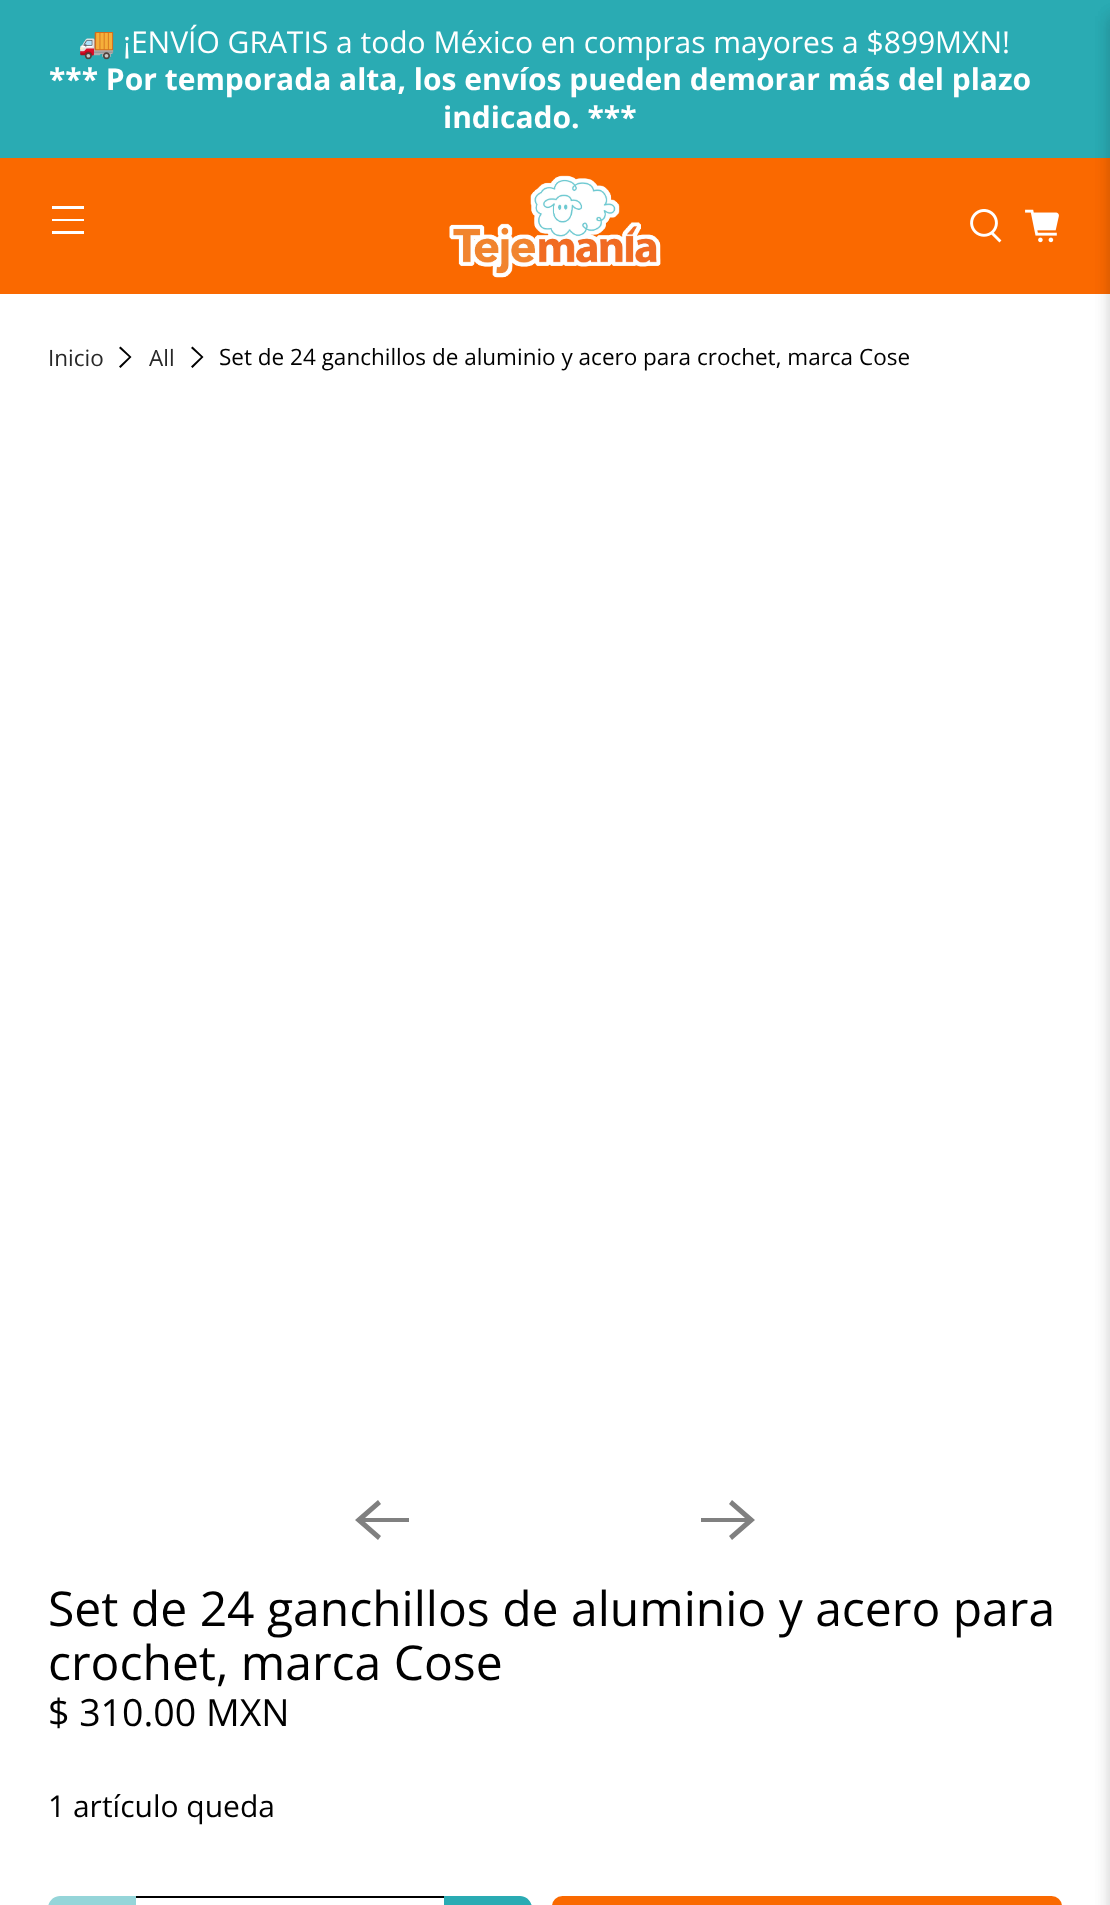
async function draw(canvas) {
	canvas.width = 1110;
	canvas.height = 1905;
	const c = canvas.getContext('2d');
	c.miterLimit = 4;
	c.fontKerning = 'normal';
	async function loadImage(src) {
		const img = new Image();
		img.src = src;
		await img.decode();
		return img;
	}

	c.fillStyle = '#fff';
	c.fillRect(0, 0, 1110, 1905);
	for (const [x, y, w, h, color] of [
		[0, 158, 1110, 136, '#fa6900'],
		[52, 206, 32, 3, '#fff'],
		[52, 219, 32, 2, '#fff'],
		[52, 231, 32, 3, '#fff'],
	]) {
		c.fillStyle = color;
		c.fillRect(x, y, w, h);
	}
	c.drawImage(await loadImage('img1.png'), 449, 175, 212, 103);
	c.drawImage(await loadImage('img2.png'), 970, 209, 32, 34);
	c.drawImage(await loadImage('img3.png'), 1025, 209, 34, 34);
	c.fillStyle = '#2aabb3';
	c.fillRect(0, 0, 1110, 158);
	c.fillStyle = '#0a0a0a1a';
	c.filter = 'blur(8px)';
	c.beginPath();
	c.rect(1110, 16, 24, 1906);
	c.fill();
	c.filter = 'none';
	c.font = '30px Noto Color Emoji';
	c.fillStyle = '#fff';
	c.fillText('🚚', 78, 53);
	c.font = '30px Open Sans';
	c.fillText('¡ENVÍO GRATIS a todo México en compras mayores a $899MXN!', 123, 53);
	c.font = 'bold 30px Open Sans';
	c.fillText('*** Por temporada alta, los envíos pueden demorar más del plazo', 49, 90);
	c.fillText('indicado. ***', 443, 128);
	c.fillStyle = '#0a0a0a1a';
	c.filter = 'blur(8px)';
	c.beginPath();
	c.rect(1110, 16, 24, 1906);
	c.fill();
	c.filter = 'none';
	c.font = '22.5px Open Sans';
	c.fillStyle = '#282828';
	c.fillText('Inicio', 48, 366);
	c.fillStyle = '#000';
	c.beginPath();
	c.moveTo(120.5, 368);
	c.lineTo(119, 366.5);
	c.lineTo(129, 357);
	c.lineTo(119, 348);
	c.lineTo(120.5, 346.5);
	c.lineTo(131.5, 357);
	c.closePath();
	c.fill();
	c.fillStyle = '#282828';
	c.fillText('All', 149, 366);
	c.fillStyle = '#000';
	c.beginPath();
	c.moveTo(192.5, 368);
	c.lineTo(191, 366.5);
	c.lineTo(201, 357);
	c.lineTo(191, 348);
	c.lineTo(192.5, 346.5);
	c.lineTo(203.5, 357);
	c.closePath();
	c.fill();
	c.fillText('Set de 24 ganchillos de aluminio y acero para crochet, marca Cose', 219, 365);
	c.fillStyle = '#808080';
	c.beginPath();
	c.moveTo(409, 1518);
	c.lineTo(365, 1518);
	c.lineTo(381, 1504);
	c.lineTo(378, 1500);
	c.lineTo(355, 1520);
	c.lineTo(378, 1540);
	c.lineTo(381, 1536);
	c.lineTo(365, 1522);
	c.lineTo(409, 1522);
	c.closePath();
	c.fill();
	c.beginPath();
	c.moveTo(701, 1522);
	c.lineTo(745, 1522);
	c.lineTo(729, 1536);
	c.lineTo(732, 1540);
	c.lineTo(755, 1520);
	c.lineTo(732, 1500);
	c.lineTo(729, 1504);
	c.lineTo(745, 1518);
	c.lineTo(701, 1518);
	c.closePath();
	c.fill();
	c.font = '48px Open Sans';
	c.fillStyle = '#000';
	c.fillText('Set de 24 ganchillos de aluminio y acero para', 48, 1626);
	c.fillText('crochet, marca Cose', 48, 1680);
	c.font = '37.5px Open Sans';
	c.fillText('$ 310.00 MXN', 48, 1726);
	c.font = '30px Open Sans';
	c.fillText('1 artículo queda', 48, 1817);
	c.fillStyle = '#95d5d9';
	c.beginPath();
	c.moveTo(60, 1896);
	c.lineTo(136, 1896);
	c.lineTo(136, 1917);
	c.lineTo(60, 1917);
	c.bezierCurveTo(53.5, 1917, 48, 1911.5, 48, 1905);
	c.lineTo(48, 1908);
	c.bezierCurveTo(48, 1901.5, 53.5, 1896, 60, 1896);
	c.closePath();
	c.fill();
	c.fillStyle = '#000';
	c.fillRect(136, 1896, 308, 2);
	c.fillStyle = '#2aabb3';
	c.beginPath();
	c.moveTo(444, 1896);
	c.lineTo(520, 1896);
	c.bezierCurveTo(526.5, 1896, 532, 1901.5, 532, 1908);
	c.lineTo(532, 1905);
	c.bezierCurveTo(532, 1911.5, 526.5, 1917, 520, 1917);
	c.lineTo(444, 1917);
	c.closePath();
	c.fill();
	c.fillStyle = '#fa6900';
	c.beginPath();
	c.roundRect(552, 1896, 510, 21, 12);
	c.fill();
}

draw(document.querySelector('canvas'));
